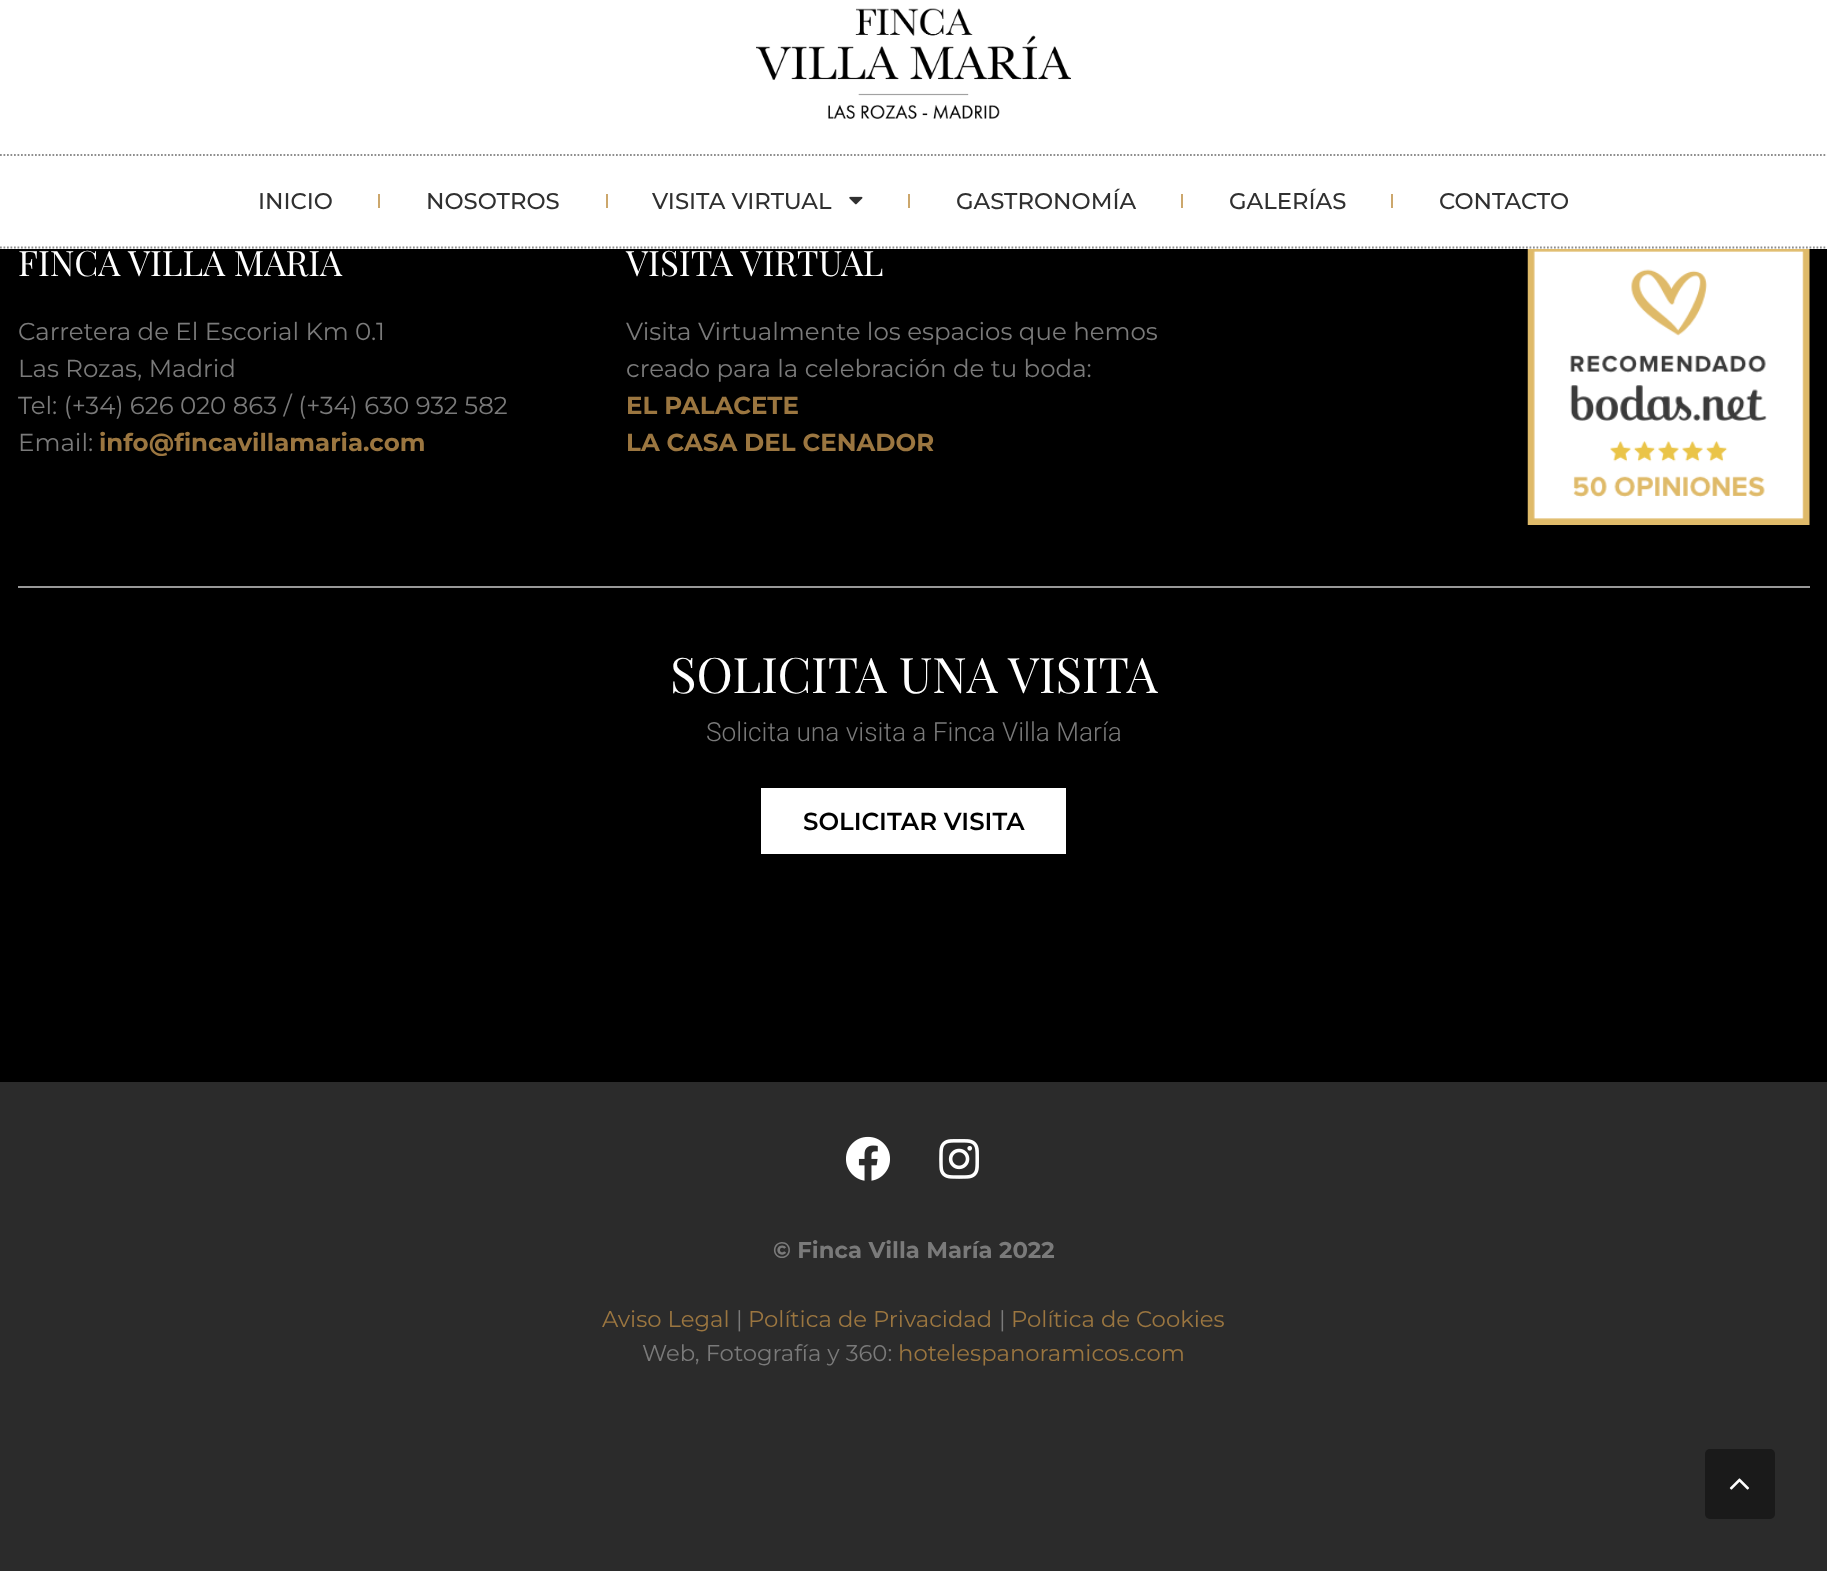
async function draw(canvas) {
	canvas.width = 1827;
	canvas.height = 1571;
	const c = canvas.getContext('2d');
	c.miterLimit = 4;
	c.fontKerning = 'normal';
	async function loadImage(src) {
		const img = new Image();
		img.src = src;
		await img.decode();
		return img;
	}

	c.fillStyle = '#000';
	c.fillRect(0, 0, 1827, 1571);
	c.fillStyle = '#fff';
	c.fillRect(0, 0, 1827, 249);
	c.drawImage(await loadImage('img1.png'), 756, 8, 315, 111);
	c.beginPath();
	c.moveTo(0, 155);
	c.lineTo(1827, 155);
	c.strokeStyle = '#8e8e8e';
	c.lineWidth = 1.8;
	c.setLineDash([1.75, 1.75]);
	c.stroke();
	c.font = '35px Playfair Display';
	c.fillText('FINCA VILLA MARÍA', 18, 276);
	c.beginPath();
	c.moveTo(0, 247.5);
	c.lineTo(1827, 247.5);
	c.stroke();
	c.font = '500 22.75px Montserrat';
	c.fillStyle = '#303030';
	c.fillText('INICIO', 258, 209);
	c.fillStyle = '#cca76c';
	c.fillRect(378, 194, 2, 14);
	c.fillStyle = '#303030';
	c.fillText('NOSOTROS', 426, 209);
	c.fillStyle = '#cca76c';
	c.fillRect(606, 194, 2, 14);
	c.fillStyle = '#303030';
	c.fillText('VISITA VIRTUAL', 652, 209);
	c.drawImage(await loadImage('img2.png'), 849, 196, 14, 9);
	c.fillStyle = '#cca76c';
	c.fillRect(908, 194, 2, 14);
	c.fillStyle = '#303030';
	c.fillText('GASTRONOMÍA', 956, 209);
	c.fillStyle = '#cca76c';
	c.fillRect(1181, 194, 2, 14);
	c.fillStyle = '#303030';
	c.fillText('GALERÍAS', 1229, 209);
	c.fillStyle = '#cca76c';
	c.fillRect(1391, 194, 2, 14);
	c.fillStyle = '#303030';
	c.fillText('CONTACTO', 1439, 209);
	c.font = '24.5px Montserrat';
	c.fillStyle = '#7a7a7a';
	for (const [text, x, y] of [
		['Carretera de El Escorial Km 0.1', 18, 340],
		['Las Rozas, Madrid', 18, 377],
		['Tel: (+34) 626 020 863 / (+34) 630 932 582', 18, 414],
		['Email:', 18, 451],
	]) {
		c.fillText(text, x, y);
	}
	c.font = 'bold 24.5px Montserrat';
	c.fillStyle = '#9b7640';
	c.fillText('info@fincavillamaria.com', 99, 451);
	c.font = '35px Playfair Display';
	c.fillStyle = '#fff';
	c.fillText('VISITA VIRTUAL', 626, 276);
	c.font = '24.5px Montserrat';
	c.fillStyle = '#7a7a7a';
	c.fillText('Visita Virtualmente los espacios que hemos', 626, 340);
	c.fillText('creado para la celebración de tu boda:', 626, 377);
	c.font = 'bold 24.5px Montserrat';
	c.fillStyle = '#9b7640';
	c.fillText('EL PALACETE', 626, 414);
	c.fillText('LA CASA DEL CENADOR', 626, 451);
	c.drawImage(await loadImage('img3.png'), 1527, 249, 283, 276);
	c.fillStyle = '#989898';
	c.fillRect(18, 586, 1792, 2);
	c.font = '49px Playfair Display';
	c.fillStyle = '#fff';
	c.fillText('SOLICITA UNA VISITA', 670, 693);
	c.font = '300 26.25px Roboto';
	c.fillStyle = '#7a7a7a';
	c.fillText('Solicita una visita a Finca Villa María', 706, 741);
	c.fillStyle = '#fff';
	c.fillRect(761, 788, 305, 66);
	c.font = '600 24.5px Montserrat';
	c.fillStyle = '#000';
	c.fillText('SOLICITAR VISITA', 803, 830);
	c.fillStyle = '#2b2b2b';
	c.fillRect(0, 1082, 1827, 489);
	c.drawImage(await loadImage('img4.png'), 846, 1136, 44, 45);
	c.drawImage(await loadImage('img5.png'), 939, 1139, 40, 40);
	c.font = 'bold 22.75px Montserrat';
	c.fillStyle = '#7a7a7a';
	c.fillText('© Finca Villa María 2022', 773, 1258);
	c.font = '22.75px Montserrat';
	c.fillStyle = '#9b7640';
	c.fillText('Aviso Legal', 602, 1327);
	c.fillStyle = '#7a7a7a';
	c.fillText('|', 736, 1327);
	c.fillStyle = '#9b7640';
	c.fillText('Política de Privacidad', 748, 1327);
	c.fillStyle = '#7a7a7a';
	c.fillText('|', 999, 1327);
	c.fillStyle = '#9b7640';
	c.fillText('Política de Cookies', 1011, 1327);
	c.fillStyle = '#7a7a7a';
	c.fillText('Web, Fotografía y 360:', 642, 1361);
	c.fillStyle = '#9b7640';
	c.fillText('hotelespanoramicos.com', 898, 1361);
	c.fillStyle = '#1a1a1a';
	c.beginPath();
	c.roundRect(1705, 1449, 70, 70, 5);
	c.fill();
	c.drawImage(await loadImage('img6.png'), 1729, 1478, 21, 12);
}

draw(document.querySelector('canvas'));
